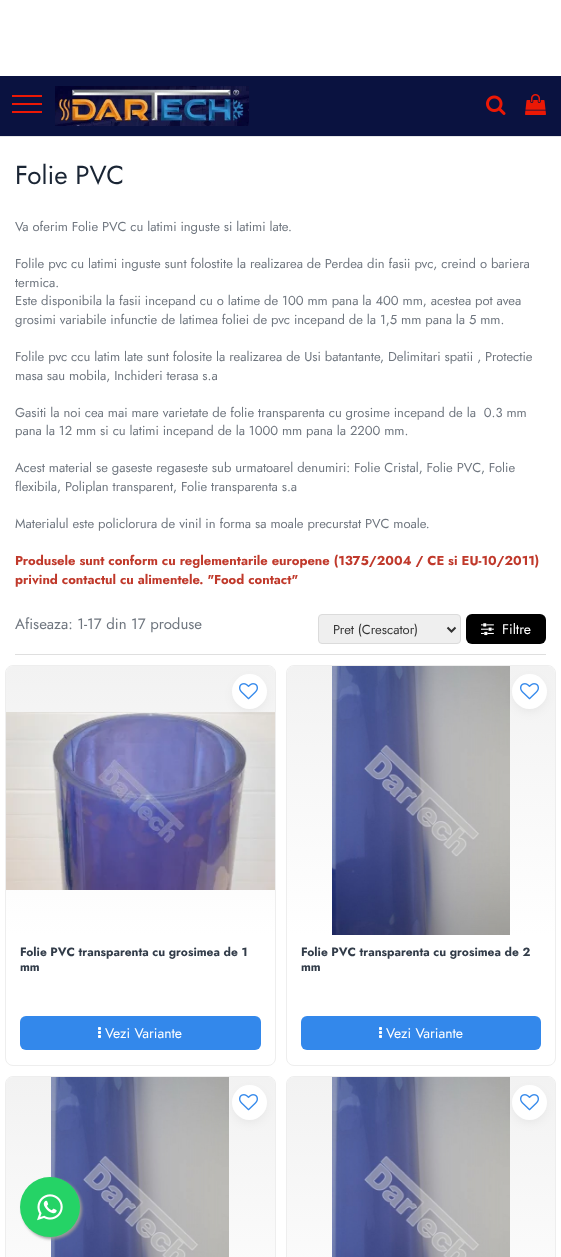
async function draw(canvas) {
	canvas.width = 561;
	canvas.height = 1257;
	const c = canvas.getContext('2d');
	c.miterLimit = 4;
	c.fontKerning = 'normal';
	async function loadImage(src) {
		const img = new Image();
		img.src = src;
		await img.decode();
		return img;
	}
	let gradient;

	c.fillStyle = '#fff';
	c.fillRect(0, 0, 561, 1257);
	c.fillStyle = '#e5e6e8';
	c.fillRect(0, 136, 561, 1);
	c.fillStyle = '#0a1240';
	c.fillRect(0, 76, 561, 60);
	c.drawImage(await loadImage('img1.png'), 55, 86, 194, 40);
	c.drawImage(await loadImage('img2.png'), 486, 95, 20, 20);
	c.drawImage(await loadImage('img3.png'), 525, 94, 21, 21);
	for (const [x, y, w, h, color] of [
		[12, 103, 30, 2, '#eb1805'],
		[12, 95, 30, 2, '#eb1805'],
		[12, 111, 30, 2, '#eb1805'],
	]) {
		c.fillStyle = color;
		c.fillRect(x, y, w, h);
	}
	c.font = '26px Jost';
	c.fillStyle = '#1a2534';
	c.fillText('Folie PVC', 15, 184);
	c.font = '13px Jost';
	c.fillStyle = '#6f767f';
	for (const [text, x, y] of [
		['Va oferim Folie PVC cu latimi inguste si latimi late.', 15, 231],
		['Folile pvc cu latimi inguste sunt folostite la realizarea de Perdea din fasii pvc, creind o bariera', 15, 268],
		['termica.', 15, 287],
		['Este disponibila la fasii incepand cu o latime de 100 mm pana la 400 mm, acestea pot avea', 15, 305],
		['grosimi variabile infunctie de latimea foliei de pvc incepand de la 1,5 mm pana la 5 mm.', 15, 324],
		['Folile pvc ccu latim late sunt folosite la realizarea de Usi batantante, Delimitari spatii , Protectie', 15, 361],
		['masa sau mobila, Inchideri terasa s.a', 15, 380],
		['Gasiti la noi cea mai mare varietate de folie transparenta cu grosime incepand de la  0.3 mm', 15, 417],
		['pana la 12 mm si cu latimi incepand de la 1000 mm pana la 2200 mm.', 15, 435],
		['Acest material se gaseste regaseste sub urmatoarel denumiri: Folie Cristal, Folie PVC, Folie', 15, 472],
		['flexibila, Poliplan transparent, Folie transparenta s.a', 15, 491],
		['Materialul este policlorura de vinil in forma sa moale precurstat PVC moale.', 15, 528],
	]) {
		c.fillText(text, x, y);
	}
	c.font = 'bold 13px Jost';
	c.fillStyle = '#c0392b';
	c.fillText('Produsele sunt conform cu reglementarile europene (1375/2004 / CE si EU-10/2011)', 15, 565);
	c.fillText('privind contactul cu alimentele. "Food contact"', 15, 584);
	c.fillStyle = '#dfdfdf';
	c.fillRect(15, 654, 531, 1);
	c.font = '15px Jost';
	c.fillStyle = '#6f767f';
	c.fillText('Afiseaza: 1-17 din 17 produse', 15, 629);
	c.fillStyle = '#efefef';
	c.beginPath();
	c.roundRect(318.5, 614.5, 142, 29, 3.5);
	c.fill();
	c.strokeStyle = '#dbdbdb';
	c.stroke();
	c.beginPath();
	c.moveTo(447.5, 627.5);
	c.lineTo(451.5, 631.5);
	c.lineTo(455.5, 627.5);
	c.strokeStyle = '#333';
	c.lineWidth = 2;
	c.stroke();
	c.font = '13px Jost';
	c.fillStyle = '#333';
	c.fillText('Pret (Crescator)', 333, 634);
	c.fillStyle = '#000';
	c.beginPath();
	c.roundRect(466, 614, 80, 30, 6);
	c.fill();
	c.drawImage(await loadImage('img4.png'), 481, 623, 13, 13);
	c.font = '14px Jost';
	c.fillStyle = '#fff';
	c.fillText('Filtre', 502, 634);
	c.beginPath();
	c.roundRect(5.5, 665.5, 270, 400, 7.5);
	c.strokeStyle = '#eee';
	c.lineWidth = 1;
	c.stroke();
	gradient = c.createLinearGradient(140, 666, 141, 935);
	gradient.addColorStop(0, '#f2f2f2');
	gradient.addColorStop(1, '#f2f2f200');
	c.fillStyle = gradient;
	c.beginPath();
	c.roundRect(6, 666, 269, 269, [7, 7, 0, 0]);
	c.fill();
	c.drawImage(await loadImage('img5.png'), 6, 712, 269, 178);
	c.font = 'bold 12px Jost';
	c.fillStyle = '#323c49';
	c.fillText('Folie PVC transparenta cu grosimea de 1', 20, 956);
	c.fillText('mm', 20, 971);
	c.fillStyle = '#00000014';
	c.filter = 'blur(6px)';
	c.beginPath();
	c.roundRect(235, 681, 29, 29, 14.5);
	c.fill();
	c.filter = 'none';
	c.fillStyle = '#fff';
	c.beginPath();
	c.arc(249.5, 691.5, 17.5, 0, 2 * Math.PI);
	c.fill();
	c.drawImage(await loadImage('img6.png'), 239, 683, 19, 17);
	c.fillStyle = '#3388eb';
	c.beginPath();
	c.roundRect(20, 1016, 241, 34, 6);
	c.fill();
	c.drawImage(await loadImage('img7.png'), 98, 1027, 3, 11);
	c.font = '14px Jost';
	c.fillStyle = '#fff';
	c.fillText('Vezi Variante', 105, 1038);
	c.beginPath();
	c.roundRect(286.5, 665.5, 269, 400, 7.5);
	c.stroke();
	gradient = c.createLinearGradient(421, 666, 421, 935);
	gradient.addColorStop(0, '#f2f2f2');
	gradient.addColorStop(1, '#f2f2f200');
	c.fillStyle = gradient;
	c.beginPath();
	c.roundRect(287, 666, 268, 269, [7, 7, 0, 0]);
	c.fill();
	c.drawImage(await loadImage('img8.png'), 332, 666, 178, 269);
	c.font = 'bold 12px Jost';
	c.fillStyle = '#323c49';
	c.fillText('Folie PVC transparenta cu grosimea de 2', 301, 956);
	c.fillText('mm', 301, 971);
	c.fillStyle = '#00000014';
	c.filter = 'blur(6px)';
	c.beginPath();
	c.roundRect(515, 681, 29, 29, 14.5);
	c.fill();
	c.filter = 'none';
	c.fillStyle = '#fff';
	c.beginPath();
	c.arc(529.5, 691.5, 17.5, 0, 2 * Math.PI);
	c.fill();
	c.drawImage(await loadImage('img6.png'), 520, 683, 19, 17);
	c.fillStyle = '#3388eb';
	c.beginPath();
	c.roundRect(301, 1016, 240, 34, 6);
	c.fill();
	c.drawImage(await loadImage('img7.png'), 379, 1027, 3, 11);
	c.font = '14px Jost';
	c.fillStyle = '#fff';
	c.fillText('Vezi Variante', 386, 1038);
	c.beginPath();
	c.roundRect(5.5, 1076.5, 270, 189, 7.5);
	c.stroke();
	gradient = c.createLinearGradient(140, 1077, 141, 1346);
	gradient.addColorStop(0, '#f2f2f2');
	gradient.addColorStop(1, '#f2f2f200');
	c.fillStyle = gradient;
	c.beginPath();
	c.moveTo(13, 1077);
	c.lineTo(268, 1077);
	c.bezierCurveTo(272, 1077, 275, 1080, 275, 1084);
	c.lineTo(275, 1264);
	c.lineTo(6, 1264);
	c.lineTo(6, 1084);
	c.bezierCurveTo(6, 1080, 9, 1077, 13, 1077);
	c.closePath();
	c.fill();
	c.drawImage(await loadImage('img9.png'), 51, 1077, 178, 180);
	c.fillStyle = '#00000014';
	c.filter = 'blur(6px)';
	c.beginPath();
	c.roundRect(235, 1092, 29, 29, 14.5);
	c.fill();
	c.filter = 'none';
	c.fillStyle = '#fff';
	c.beginPath();
	c.arc(249.5, 1102.5, 17.5, 0, 2 * Math.PI);
	c.fill();
	c.drawImage(await loadImage('img6.png'), 239, 1094, 19, 17);
	c.beginPath();
	c.roundRect(286.5, 1076.5, 269, 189, 7.5);
	c.stroke();
	gradient = c.createLinearGradient(421, 1077, 421, 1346);
	gradient.addColorStop(0, '#f2f2f2');
	gradient.addColorStop(1, '#f2f2f200');
	c.fillStyle = gradient;
	c.beginPath();
	c.moveTo(294, 1077);
	c.lineTo(548, 1077);
	c.bezierCurveTo(552, 1077, 555, 1080, 555, 1084);
	c.lineTo(555, 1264);
	c.lineTo(287, 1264);
	c.lineTo(287, 1084);
	c.bezierCurveTo(287, 1080, 290, 1077, 294, 1077);
	c.closePath();
	c.fill();
	c.drawImage(await loadImage('img10.png'), 332, 1077, 178, 180);
	c.fillStyle = '#00000014';
	c.filter = 'blur(6px)';
	c.beginPath();
	c.roundRect(515, 1092, 29, 29, 14.5);
	c.fill();
	c.filter = 'none';
	c.fillStyle = '#fff';
	c.beginPath();
	c.arc(529.5, 1102.5, 17.5, 0, 2 * Math.PI);
	c.fill();
	c.drawImage(await loadImage('img6.png'), 520, 1094, 19, 17);
	c.fillStyle = '#999';
	c.filter = 'blur(1.5px)';
	c.beginPath();
	c.roundRect(22, 1179, 60, 60, 30);
	c.fill();
	c.filter = 'none';
	c.fillStyle = '#25d366';
	c.beginPath();
	c.arc(50, 1207, 30, 0, 2 * Math.PI);
	c.fill();
	c.drawImage(await loadImage('img11.png'), 37, 1194, 26, 27);
}

draw(document.querySelector('canvas'));
